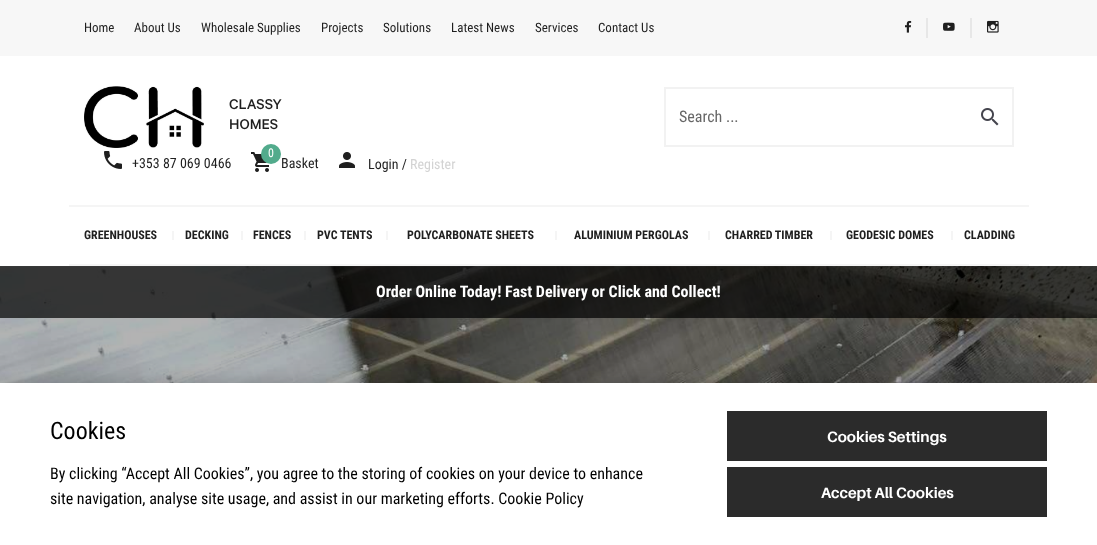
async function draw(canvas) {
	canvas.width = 1097;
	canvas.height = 545;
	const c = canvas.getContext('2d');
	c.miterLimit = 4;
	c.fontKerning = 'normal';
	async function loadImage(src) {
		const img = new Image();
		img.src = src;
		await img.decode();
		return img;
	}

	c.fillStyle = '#fff';
	c.fillRect(0, 0, 1097, 545);
	c.fillStyle = '#f7f7f7';
	c.fillRect(0, 0, 1097, 56);
	c.font = '13px Roboto Condensed';
	c.fillStyle = '#1f1f1f';
	for (const [text, x, y] of [
		['Home', 84, 32],
		['About Us', 134, 32],
		['Wholesale Supplies', 201, 32],
		['Projects', 321, 32],
		['Solutions', 383, 32],
		['Latest News', 451, 32],
		['Services', 535, 32],
		['Contact Us', 598, 32],
	]) {
		c.fillText(text, x, y);
	}
	c.fillStyle = '#e7e7e7';
	c.fillRect(926, 18, 2, 20);
	c.drawImage(await loadImage('img1.png'), 905, 20, 7, 13);
	c.fillRect(970, 18, 2, 20);
	c.drawImage(await loadImage('img2.png'), 943, 22, 12, 9);
	c.drawImage(await loadImage('img3.png'), 987, 20, 12, 13);
	c.drawImage(await loadImage('img4.png'), 84, 86, 120, 62);
	c.font = '500 16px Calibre';
	c.fillStyle = '#1f1f1f';
	c.fillText('CLASSY', 229, 109);
	c.fillText('HOMES', 229, 129);
	c.strokeStyle = '#f2f2f2';
	c.lineWidth = 2;
	c.strokeRect(665, 88, 348, 58);
	c.font = '16px Roboto Condensed';
	c.fillStyle = '#666';
	c.fillText('Search ...', 679, 122);
	c.drawImage(await loadImage('img5.png'), 981, 108, 18, 18);
	c.drawImage(await loadImage('img6.png'), 104, 151, 18, 18);
	c.font = '14px Roboto Condensed';
	c.fillStyle = '#1f1f1f';
	c.fillText('+353 87 069 0466', 132, 168);
	c.drawImage(await loadImage('img7.png'), 251, 152, 18, 20);
	c.fillStyle = '#52ab8c';
	c.beginPath();
	c.arc(271, 154, 10, 0, 2 * Math.PI);
	c.fill();
	c.font = '12px Roboto Condensed';
	c.fillStyle = '#fff';
	c.fillText('0', 268, 157);
	c.font = '14px Roboto Condensed';
	c.fillStyle = '#1f1f1f';
	c.fillText('Basket', 281, 168);
	c.drawImage(await loadImage('img8.png'), 339, 152, 16, 16);
	c.fillText('Login /', 368, 169);
	c.fillStyle = '#d3d3d3';
	c.fillText('Register', 410, 169);
	c.fillStyle = '#f5f5f5';
	c.fillRect(69, 205, 960, 2);
	c.fillRect(69, 264, 960, 2);
	c.font = 'bold 12px Roboto Condensed';
	c.fillStyle = '#1f1f1f';
	c.fillText('GREENHOUSES', 84, 239);
	c.fillStyle = '#f5f5f5';
	c.fillRect(172, 231, 2, 9);
	c.fillStyle = '#1f1f1f';
	c.fillText('DECKING', 185, 239);
	c.fillStyle = '#f5f5f5';
	c.fillRect(241, 231, 2, 9);
	c.fillStyle = '#1f1f1f';
	c.fillText('FENCES', 253, 239);
	c.fillStyle = '#f5f5f5';
	c.fillRect(304, 231, 2, 9);
	c.fillStyle = '#1f1f1f';
	c.fillText('PVC TENTS', 317, 239);
	c.fillStyle = '#f5f5f5';
	c.fillRect(386, 231, 2, 9);
	c.fillStyle = '#1f1f1f';
	c.fillText('POLYCARBONATE SHEETS', 407, 239);
	c.fillStyle = '#f5f5f5';
	c.fillRect(555, 231, 2, 9);
	c.fillStyle = '#1f1f1f';
	c.fillText('ALUMINIUM PERGOLAS', 574, 239);
	c.fillStyle = '#f5f5f5';
	c.fillRect(708, 231, 2, 9);
	c.fillStyle = '#1f1f1f';
	c.fillText('CHARRED TIMBER', 725, 239);
	c.fillStyle = '#f5f5f5';
	c.fillRect(830, 231, 2, 9);
	c.fillStyle = '#1f1f1f';
	c.fillText('GEODESIC DOMES', 846, 239);
	c.fillStyle = '#f5f5f5';
	c.fillRect(951, 231, 2, 9);
	c.fillStyle = '#1f1f1f';
	c.fillText('CLADDING', 964, 239);
	c.drawImage(await loadImage('img9.png'), 0, 266, 1097, 117);
	c.fillStyle = '#000000b3';
	c.fillRect(0, 266, 1097, 52);
	c.font = 'bold 16px Roboto Condensed';
	c.fillStyle = '#fff';
	c.fillText('Order Online Today! Fast Delivery or Click and Collect!', 376, 297);
	c.fillStyle = '#00000033';
	c.filter = 'blur(9px)';
	c.beginPath();
	c.rect(0, 383, 1097, 162);
	c.fill();
	c.filter = 'none';
	c.fillStyle = '#fff';
	c.fillRect(0, 383, 1097, 162);
	c.font = '24px Roboto Condensed';
	c.fillStyle = '#000';
	c.fillText('Cookies', 50, 439);
	c.font = '16px Roboto Condensed';
	c.fillText('By clicking “Accept All Cookies”, you agree to the storing of cookies on your device to enhance', 50, 479);
	c.fillText('site navigation, analyse site usage, and assist in our marketing efforts. Cookie Policy', 50, 504);
	c.fillStyle = '#2b2b2b';
	c.fillRect(727, 411, 320, 50);
	c.font = 'bold 15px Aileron';
	c.fillStyle = '#fff';
	c.fillText('Cookies Settings', 827, 442);
	c.fillStyle = '#2b2b2b';
	c.fillRect(727, 467, 320, 50);
	c.fillStyle = '#fff';
	c.fillText('Accept All Cookies', 821, 498);
}

draw(document.querySelector('canvas'));
